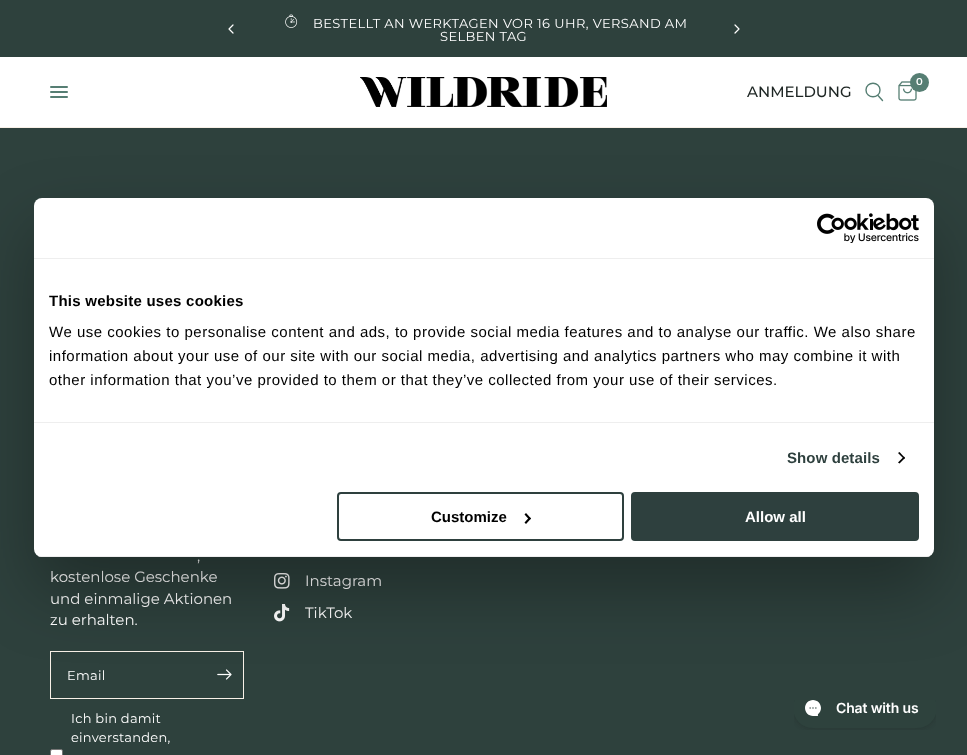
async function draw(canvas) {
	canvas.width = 967;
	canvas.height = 755;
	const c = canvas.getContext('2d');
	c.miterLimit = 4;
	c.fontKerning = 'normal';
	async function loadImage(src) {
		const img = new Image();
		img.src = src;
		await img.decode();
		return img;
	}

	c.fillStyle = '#fff';
	c.fillRect(0, 0, 967, 755);
	c.fillStyle = '#2e413d';
	c.fillRect(0, 0, 967, 57);
	c.beginPath();
	c.moveTo(233, 25);
	c.lineTo(229, 29);
	c.lineTo(233, 33);
	c.strokeStyle = '#fff';
	c.lineWidth = 1.2;
	c.lineCap = 'round';
	c.lineJoin = 'round';
	c.stroke();
	c.drawImage(await loadImage('img1.png'), 285, 14, 13, 14);
	c.letterSpacing = '0.4px';
	c.font = '100 13px Montserrat';
	c.fillStyle = '#fff';
	c.fillText('BESTELLT AN WERKTAGEN VOR 16 UHR, VERSAND AM', 313, 28);
	c.fillText('SELBEN TAG', 440, 41);
	c.beginPath();
	c.moveTo(735, 25);
	c.lineTo(739, 29);
	c.lineTo(735, 33);
	c.stroke();
	c.fillStyle = '#f8f0e7';
	c.fillRect(0, 127, 967, 1);
	c.fillStyle = '#567e73';
	c.beginPath();
	c.roundRect(50, 86, 18, 2, 1);
	c.fill();
	c.beginPath();
	c.roundRect(50, 91, 18, 2, 1);
	c.fill();
	c.beginPath();
	c.roundRect(50, 96, 18, 2, 1);
	c.fill();
	c.drawImage(await loadImage('img2.png'), 360, 77, 247, 30);
	c.letterSpacing = '0px';
	c.font = '500 15px Montserrat';
	c.fillStyle = '#1d2523';
	c.fillText('ANMELDUNG', 747, 97);
	c.beginPath();
	c.moveTo(878, 95.5);
	c.lineTo(882.5, 100.5);
	c.moveTo(880, 90);
	c.bezierCurveTo(880, 99, 866, 99, 866, 90);
	c.bezierCurveTo(866, 81, 880, 81, 880, 90);
	c.closePath();
	c.strokeStyle = '#567e73';
	c.lineWidth = 1.4;
	c.stroke();
	c.drawImage(await loadImage('img3.png'), 898, 81, 19, 20);
	c.fillStyle = '#567e73';
	c.beginPath();
	c.arc(919.5, 82.5, 9.5, 0, 2 * Math.PI);
	c.fill();
	c.font = '600 10px Montserrat';
	c.fillStyle = '#fff';
	c.fillText('0', 916, 85);
	c.fillStyle = '#2e413d';
	c.fillRect(0, 128, 967, 627);
	c.font = '100 15px Montserrat';
	c.fillStyle = '#fff';
	for (const [text, x, y] of [
		[',', 197, 561],
		['kostenlose Geschenke', 50, 582],
		['und einmalige Aktionen', 50, 604],
		['zu erhalten.', 50, 625],
	]) {
		c.fillText(text, x, y);
	}
	c.strokeStyle = '#f8f0e7';
	c.lineWidth = 1;
	c.lineJoin = 'miter';
	c.strokeRect(50.5, 651.5, 193, 47);
	c.letterSpacing = '0.25px';
	c.font = '100 13px Montserrat';
	c.fillText('Email', 67, 680);
	c.drawImage(await loadImage('img4.png'), 217, 669, 15, 11);
	c.fillText('Ich bin damit', 71, 723);
	c.fillText('einverstanden,', 71, 742);
	c.beginPath();
	c.roundRect(50.5, 749.5, 12, 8, 1.5);
	c.fill();
	c.strokeStyle = '#767676';
	c.stroke();
	c.drawImage(await loadImage('img5.png'), 274, 573, 16, 16);
	c.letterSpacing = '0px';
	c.font = '100 15px Montserrat';
	c.fillText('Instagram', 305, 586);
	c.drawImage(await loadImage('img6.png'), 274, 604, 16, 18);
	c.fillText('TikTok', 305, 618);
	c.fillStyle = '#0000004d';
	c.filter = 'blur(34px)';
	c.beginPath();
	c.roundRect(34, 230, 900, 359, 8);
	c.fill();
	c.filter = 'none';
	c.fillStyle = '#fff';
	c.beginPath();
	c.roundRect(34, 198, 900, 359, 8);
	c.fill();
	c.fillStyle = '#eee';
	c.fillRect(34, 258, 900, 1);
	c.drawImage(await loadImage('img7.png'), 817, 213, 102, 30);
	c.fillRect(34, 422, 900, 1);
	c.letterSpacing = '0.25px';
	c.font = 'bold 15px Liberation Sans';
	c.fillStyle = '#000';
	c.fillText('This website uses cookies', 49, 306);
	c.letterSpacing = '0.5px';
	c.font = '15px Liberation Sans';
	for (const [text, x, y] of [
		['We use cookies to personalise content and ads, to provide social media features and to analyse our traffic. We also share', 49, 337],
		['information about your use of our site with our social media, advertising and analytics partners who may combine it with', 49, 361],
		['other information that you’ve provided to them or that they’ve collected from your use of their services.', 49, 385],
	]) {
		c.fillText(text, x, y);
	}
	c.letterSpacing = '0.1px';
	c.font = 'bold 15px Liberation Sans';
	c.fillStyle = '#2e403e';
	c.fillText('Show details', 787, 463);
	c.fillStyle = '#000';
	c.beginPath();
	c.moveTo(899.5, 452);
	c.lineTo(905, 458);
	c.lineTo(904, 459);
	c.lineTo(898, 453);
	c.closePath();
	c.fill();
	c.beginPath();
	c.moveTo(904, 456.5);
	c.lineTo(905, 458);
	c.lineTo(899.5, 463.5);
	c.lineTo(898, 462.5);
	c.closePath();
	c.fill();
	c.save();
	c.beginPath();
	c.roundRect(34, 198, 900, 359, 8);
	c.clip();
	c.fillStyle = '#eee';
	c.fillRect(34, 556, 900, 1);
	c.restore();
	c.beginPath();
	c.roundRect(338, 493, 285, 47, 3);
	c.strokeStyle = '#2e403e';
	c.lineWidth = 2;
	c.stroke();
	c.letterSpacing = '0px';
	c.fillText('Customize', 431, 522);
	c.beginPath();
	c.moveTo(526, 513);
	c.lineTo(531, 518.5);
	c.lineTo(529.5, 520);
	c.lineTo(524.5, 514.5);
	c.closePath();
	c.fill();
	c.beginPath();
	c.moveTo(529.5, 517);
	c.lineTo(531, 518.5);
	c.lineTo(526, 524);
	c.lineTo(524.5, 522.5);
	c.closePath();
	c.fill();
	c.fillStyle = '#2e403e';
	c.beginPath();
	c.roundRect(632, 493, 286, 47, 3);
	c.fill();
	c.stroke();
	c.fillStyle = '#fff';
	c.fillText('Allow all', 745, 522);
	c.drawImage(await loadImage('img8.png'), 794, 700, 142, 30);
}

draw(document.querySelector('canvas'));
